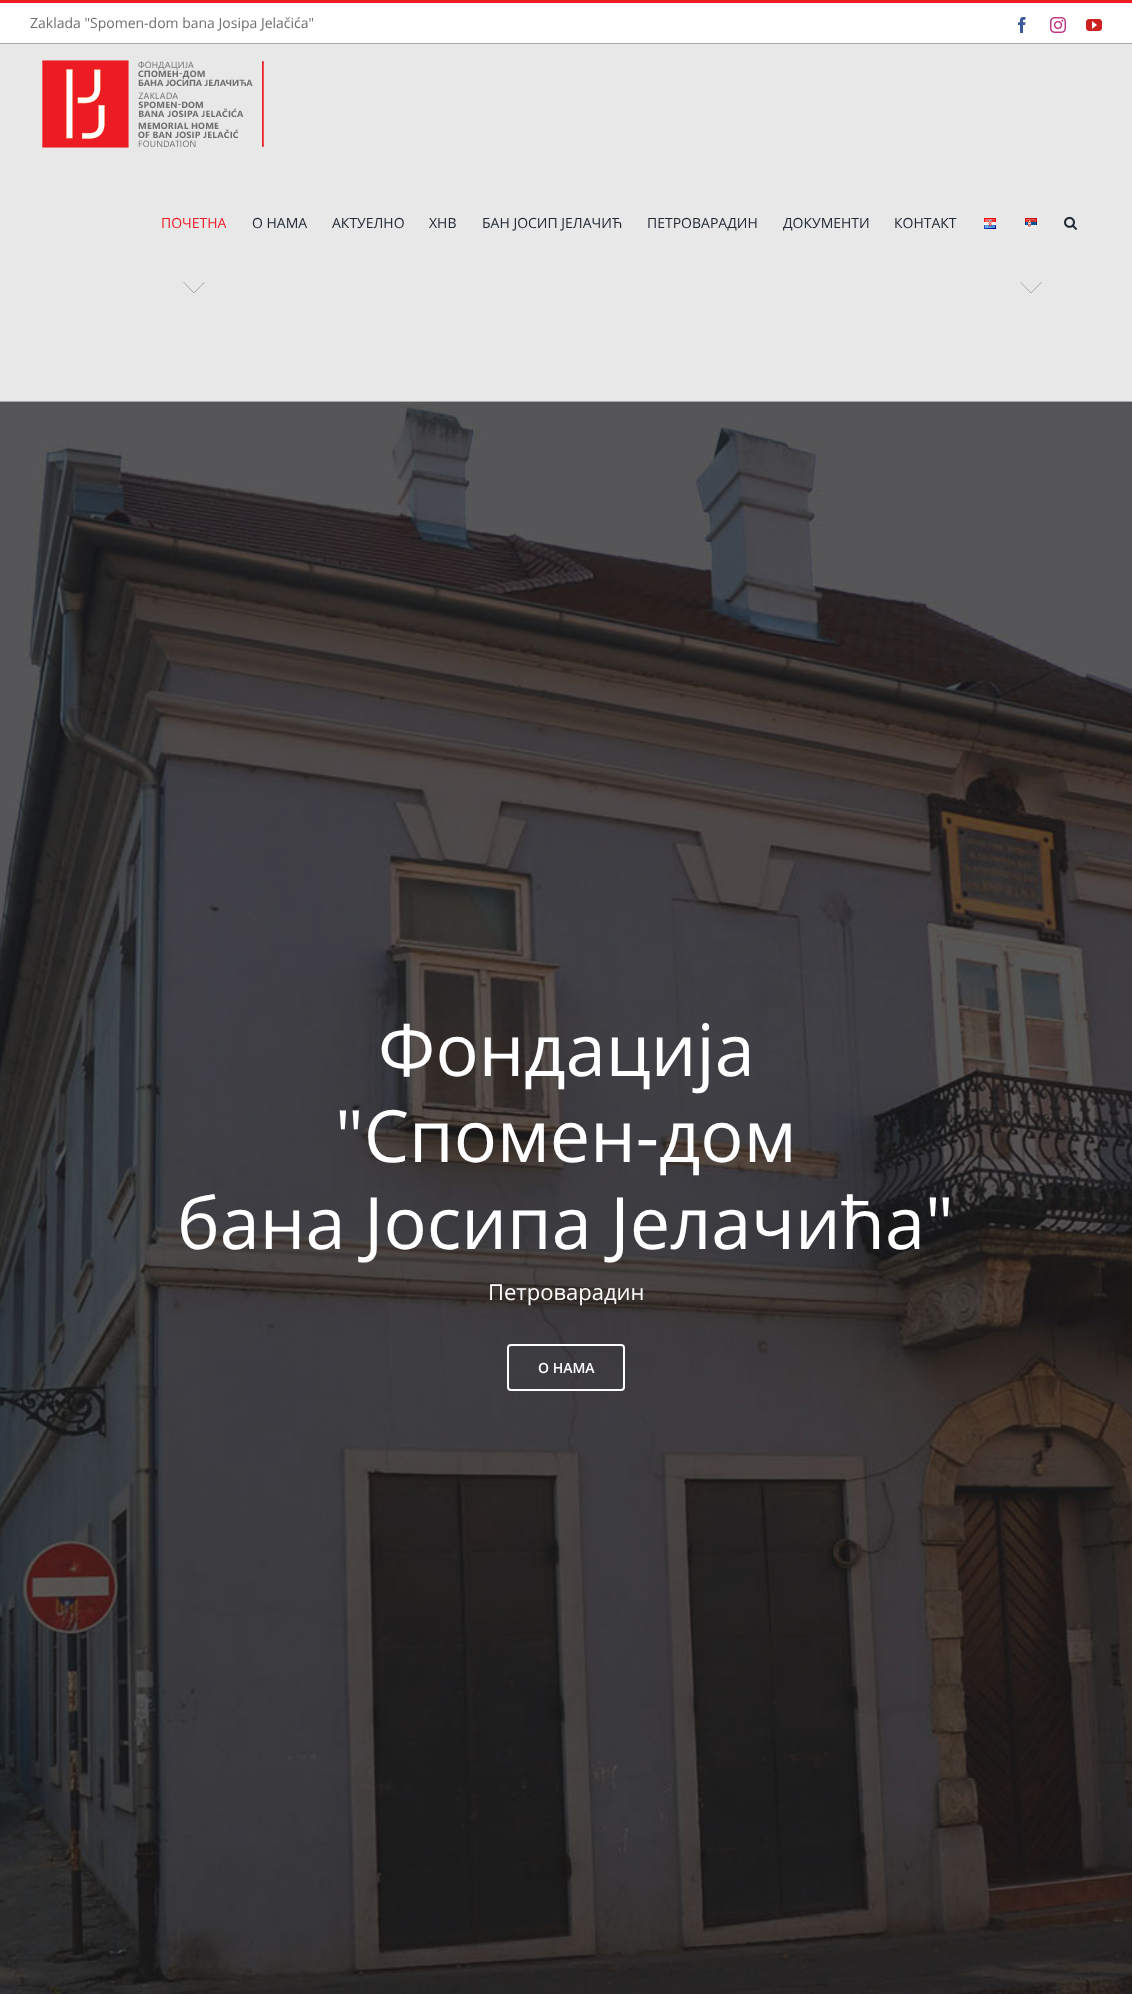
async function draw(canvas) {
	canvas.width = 1132;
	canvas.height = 1994;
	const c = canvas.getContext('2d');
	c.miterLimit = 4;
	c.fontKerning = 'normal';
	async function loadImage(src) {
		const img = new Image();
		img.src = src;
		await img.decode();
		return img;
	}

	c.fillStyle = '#fff';
	c.fillRect(0, 0, 1132, 1994);
	c.fillStyle = '#ed1c24';
	c.fillRect(0, 0, 1132, 3);
	c.fillStyle = '#a8a8a8';
	c.fillRect(0, 43, 1132, 1);
	c.font = '14px Open Sans';
	c.fillStyle = '#6d6e70';
	c.fillText('Zaklada "Spomen-dom bana Josipa Jelačića"', 30, 28);
	c.drawImage(await loadImage('img1.png'), 1018, 17, 8, 16);
	c.drawImage(await loadImage('img2.png'), 1050, 17, 16, 16);
	c.drawImage(await loadImage('img3.png'), 1086, 19, 16, 12);
	c.fillStyle = '#e8e8e8';
	c.fillRect(0, 44, 1132, 357);
	c.fillStyle = '#a8a8a8';
	c.fillRect(0, 401, 1132, 1);
	c.drawImage(await loadImage('img4.png'), 42, 60, 222, 88);
	c.fillStyle = '#ed1c24';
	c.fillText('ПОЧЕТНА', 161, 228);
	c.save();
	c.beginPath();
	c.rect(183, 282, 23, 11);
	c.clip();
	c.beginPath();
	c.moveTo(182.5, 281);
	c.lineTo(194, 293);
	c.lineTo(205.5, 281);
	c.closePath();
	c.strokeStyle = '#a8a8a8';
	c.stroke();
	c.restore();
	c.fillStyle = '#212934';
	for (const [text, x, y] of [
		['О НАМА', 252, 228],
		['АКТУЕЛНО', 332, 228],
		['ХНВ', 429, 228],
		['БАН ЈОСИП ЈЕЛАЧИЋ', 482, 228],
		['ПЕТРОВАРАДИН', 647, 228],
		['ДОКУМЕНТИ', 783, 228],
		['КОНТАКТ', 894, 228],
	]) {
		c.fillText(text, x, y);
	}
	c.drawImage(await loadImage('img5.png'), 984, 218, 12, 11);
	c.drawImage(await loadImage('img6.png'), 1025, 218, 12, 10);
	c.save();
	c.beginPath();
	c.rect(1020, 282, 23, 11);
	c.clip();
	c.beginPath();
	c.moveTo(1019.5, 281);
	c.lineTo(1031, 293);
	c.lineTo(1042.5, 281);
	c.closePath();
	c.strokeStyle = '#a8a8a8';
	c.stroke();
	c.restore();
	c.drawImage(await loadImage('img7.png'), 1064, 216, 13, 14);
	c.drawImage(await loadImage('img8.png'), 0, 402, 1132, 1592);
	c.font = '72px Open Sans';
	c.fillStyle = '#fff';
	for (const [text, x, y] of [
		['Фондација', 378, 1076],
		['"Спомен-дом', 335, 1162],
		['бана Јосипа Јелачића"', 177, 1249],
	]) {
		c.fillText(text, x, y);
	}
	c.font = '22px Open Sans';
	c.fillText('Петроварадин', 488, 1300);
	c.beginPath();
	c.roundRect(508, 1345, 116, 45, 3);
	c.strokeStyle = '#fff';
	c.lineWidth = 2;
	c.stroke();
	c.font = '600 14px Open Sans';
	c.fillText('О НАМА', 538, 1373);
}

draw(document.querySelector('canvas'));
